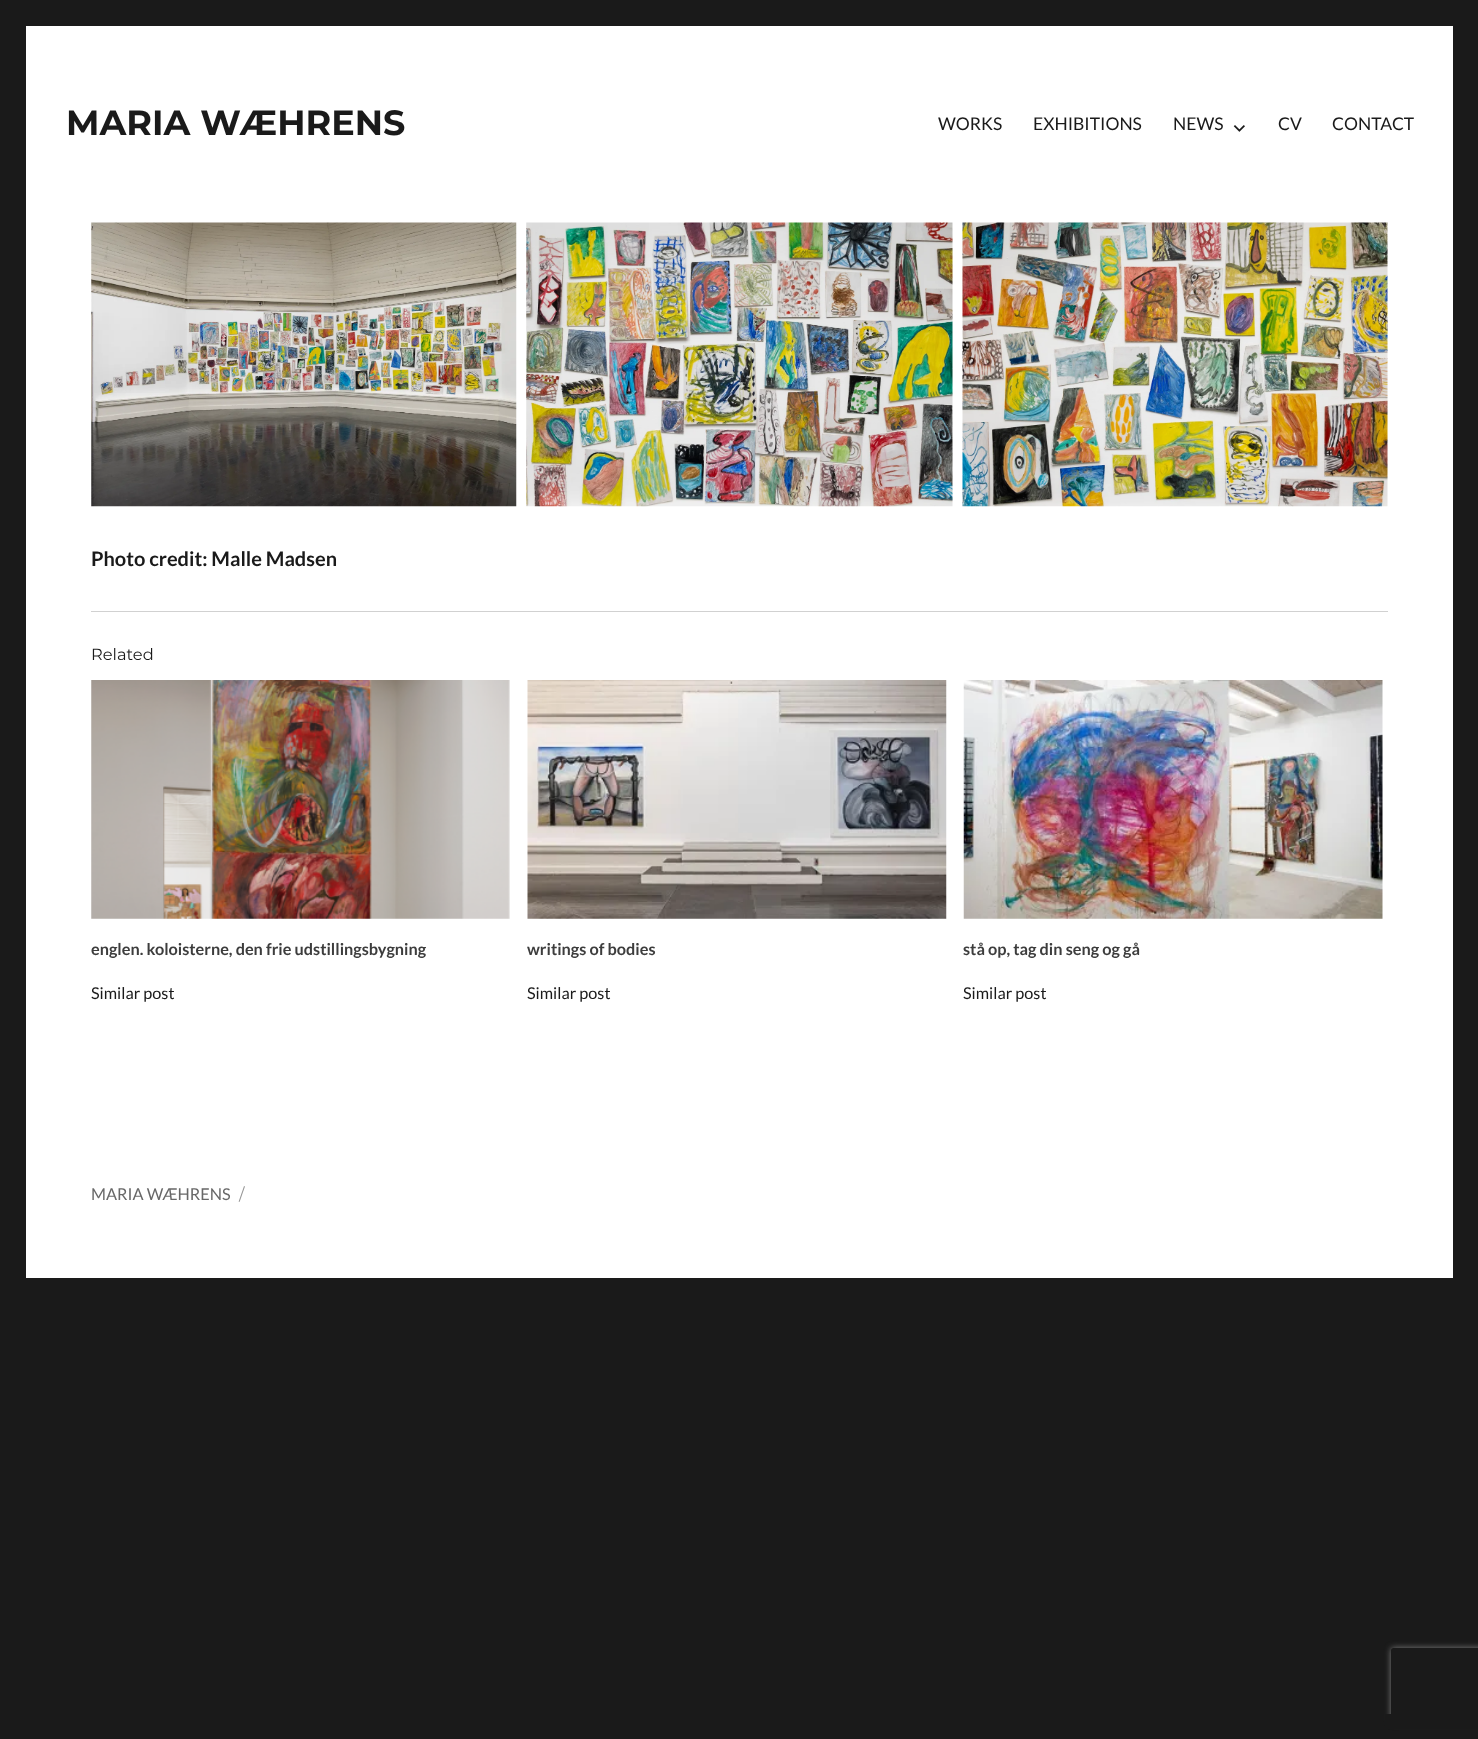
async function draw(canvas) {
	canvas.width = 1478;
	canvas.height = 1739;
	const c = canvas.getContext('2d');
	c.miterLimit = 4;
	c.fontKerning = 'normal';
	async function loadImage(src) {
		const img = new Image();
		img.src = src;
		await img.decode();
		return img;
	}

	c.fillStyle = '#1a1a1a';
	c.fillRect(0, 0, 1478, 1739);
	c.fillStyle = '#fff';
	c.fillRect(26, 26, 1427, 1252);
	c.font = '100 35px Montserrat';
	c.fillStyle = '#1a1a1a';
	c.fillText('MARIA WÆHRENS', 66, 135);
	c.font = '17.5px Lato';
	for (const [text, x, y] of [
		['WORKS', 938, 130],
		['EXHIBITIONS', 1033, 130],
		['NEWS', 1173, 130],
	]) {
		c.fillText(text, x, y);
	}
	c.drawImage(await loadImage('img1.png'), 1233, 125, 12, 7);
	c.fillText('CV', 1278, 130);
	c.fillText('CONTACT', 1332, 130);
	c.drawImage(await loadImage('img2.png'), 91, 222, 426, 285);
	c.drawImage(await loadImage('img3.png'), 526, 222, 427, 285);
	c.drawImage(await loadImage('img4.png'), 962, 222, 426, 285);
	c.font = 'bold 20px Lato';
	c.fillText('Photo credit: Malle Madsen', 91, 566);
	c.fillStyle = '#d1d1d1';
	c.fillRect(91, 611, 1297, 1);
	c.font = '100 16.25px "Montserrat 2"';
	c.fillStyle = '#1a1a1a';
	c.fillText('Related', 91, 660);
	c.drawImage(await loadImage('img5.png'), 91, 680, 419, 239);
	c.font = 'bold 16.25px Lato';
	c.fillStyle = '#3d3d3d';
	c.fillText('englen. koloisterne, den frie udstillingsbygning', 91, 955);
	c.font = '16.25px Lato';
	c.fillStyle = '#1a1a1a';
	c.fillText('Similar post', 91, 999);
	c.drawImage(await loadImage('img6.png'), 527, 680, 420, 239);
	c.font = 'bold 16.25px Lato';
	c.fillStyle = '#3d3d3d';
	c.fillText('writings of bodies', 527, 955);
	c.font = '16.25px Lato';
	c.fillStyle = '#1a1a1a';
	c.fillText('Similar post', 527, 999);
	c.drawImage(await loadImage('img7.png'), 963, 680, 420, 239);
	c.font = 'bold 16.25px Lato';
	c.fillStyle = '#3d3d3d';
	c.fillText('stå op, tag din seng og gå', 963, 955);
	c.font = '16.25px Lato';
	c.fillStyle = '#1a1a1a';
	c.fillText('Similar post', 963, 999);
	c.fillStyle = '#686868';
	c.fillText('MARIA WÆHRENS', 91, 1200);
	c.font = '100 16.25px "Montserrat 2"';
	c.fillStyle = '#959595';
	c.fillText('/', 239, 1200);
	c.save();
	c.beginPath();
	c.moveTo(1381, 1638);
	c.lineTo(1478, 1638);
	c.lineTo(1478, 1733);
	c.lineTo(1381, 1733);
	c.closePath();
	c.moveTo(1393.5, 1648);
	c.lineTo(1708.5, 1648);
	c.bezierCurveTo(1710, 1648, 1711, 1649, 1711, 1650.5);
	c.lineTo(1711, 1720.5);
	c.bezierCurveTo(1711, 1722, 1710, 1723, 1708.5, 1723);
	c.lineTo(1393.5, 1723);
	c.bezierCurveTo(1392, 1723, 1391, 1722, 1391, 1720.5);
	c.lineTo(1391, 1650.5);
	c.bezierCurveTo(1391, 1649, 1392, 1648, 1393.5, 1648);
	c.closePath();
	c.clip('evenodd');
	c.fillStyle = '#808080';
	c.filter = 'blur(3px)';
	c.beginPath();
	c.roundRect(1391, 1648, 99, 75, 2.5);
	c.fill();
	c.filter = 'none';
	c.restore();
	c.fillStyle = '#1a1a1a';
	c.fillRect(1385, 1714, 93, 15);
}

draw(document.querySelector('canvas'));
